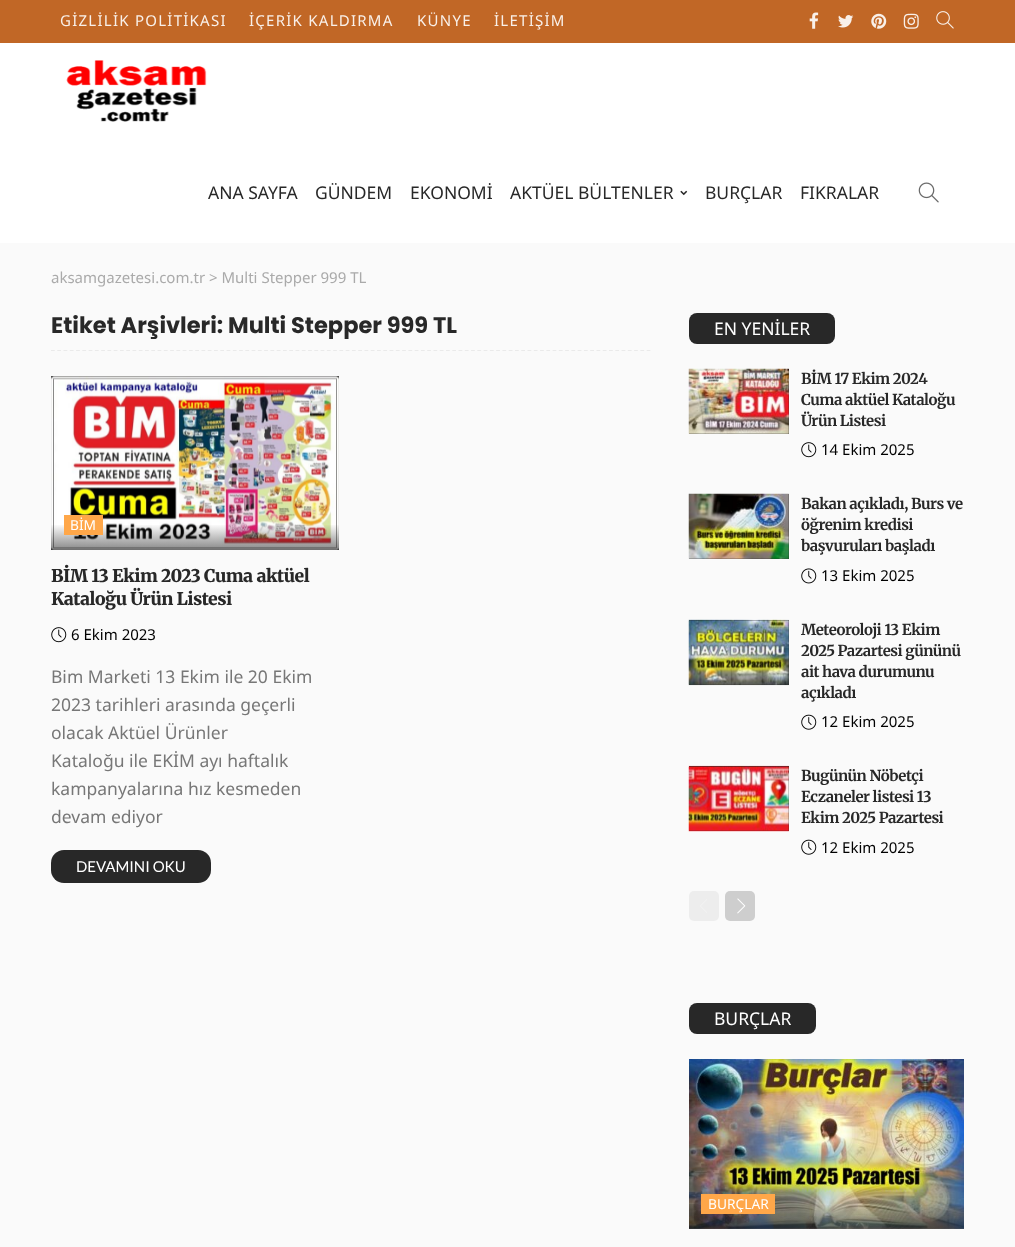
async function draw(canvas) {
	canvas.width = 1015;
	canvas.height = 1247;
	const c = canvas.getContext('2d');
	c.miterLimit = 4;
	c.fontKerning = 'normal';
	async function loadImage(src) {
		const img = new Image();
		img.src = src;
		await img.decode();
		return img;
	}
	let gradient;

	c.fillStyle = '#fafafa';
	c.fillRect(0, 0, 1015, 1247);
	c.fillStyle = '#c16726';
	c.fillRect(0, 0, 1015, 43);
	c.letterSpacing = '1.25px';
	c.font = '15px Noto Sans';
	c.fillStyle = '#f9f0e9';
	for (const [text, x, y] of [
		['GİZLİLİK POLİTİKASI', 60, 26],
		['İÇERİK KALDIRMA', 249, 26],
		['KÜNYE', 417, 26],
		['İLETİŞİM', 494, 26],
	]) {
		c.fillText(text, x, y);
	}
	c.drawImage(await loadImage('img1.png'), 809, 12, 10, 17);
	c.drawImage(await loadImage('img2.png'), 838, 15, 16, 13);
	c.drawImage(await loadImage('img3.png'), 871, 13, 16, 16);
	c.drawImage(await loadImage('img4.png'), 903, 13, 16, 16);
	c.drawImage(await loadImage('img5.png'), 936, 11, 18, 18);
	c.fillStyle = '#fff';
	c.fillRect(0, 43, 1015, 200);
	c.drawImage(await loadImage('img6.png'), 66, 60, 141, 62);
	c.letterSpacing = '0px';
	c.font = '17.5px Noto Sans';
	c.fillStyle = '#282828';
	for (const [text, x, y] of [
		['ANA SAYFA', 208, 199],
		['GÜNDEM', 315, 199],
		['EKONOMİ', 410, 199],
		['AKTÜEL BÜLTENLER', 510, 199],
	]) {
		c.fillText(text, x, y);
	}
	c.drawImage(await loadImage('img7.png'), 680, 190, 8, 6);
	c.fillText('BURÇLAR', 705, 199);
	c.fillText('FIKRALAR', 800, 199);
	c.drawImage(await loadImage('img8.png'), 918, 182, 21, 21);
	c.font = '15px Noto Sans';
	c.fillStyle = '#aaa';
	c.fillText('aksamgazetesi.com.tr > Multi Stepper 999 TL', 51, 283);
	c.beginPath();
	c.moveTo(51, 350.5);
	c.lineTo(651, 350.5);
	c.strokeStyle = '#eaeaea';
	c.lineWidth = 1.2;
	c.setLineDash([3.75, 2.52]);
	c.stroke();
	c.font = 'bold 22.5px Poppins';
	c.fillStyle = '#282828';
	c.fillText('Etiket Arşivleri: Multi Stepper 999 TL', 51, 333);
	c.fillRect(51, 376, 288, 174);
	c.drawImage(await loadImage('img9.png'), 51, 376, 288, 174);
	gradient = c.createLinearGradient(195, 524, 195, 551);
	gradient.addColorStop(0, '#22222200');
	gradient.addColorStop(0.3, '#2222222b');
	gradient.addColorStop(1, '#2222228f');
	c.fillStyle = gradient;
	c.fillRect(51, 525, 288, 25);
	c.fillStyle = '#ffa749';
	c.fillRect(64, 515, 39, 20);
	c.font = '13.75px Noto Sans';
	c.fillStyle = '#fff';
	c.fillText('BİM', 70, 530);
	c.letterSpacing = '-0.45px';
	c.font = '900 17.5px Merriweather';
	c.fillStyle = '#282828';
	c.fillText('BİM 13 Ekim 2023 Cuma aktüel', 51, 582);
	c.fillText('Kataloğu Ürün Listesi', 51, 605);
	c.drawImage(await loadImage('img10.png'), 51, 627, 16, 16);
	c.letterSpacing = '0px';
	c.font = '15px Noto Sans';
	c.fillStyle = '#000';
	c.fillText('6 Ekim 2023', 71, 640);
	c.font = '17.5px Noto Sans';
	c.fillStyle = '#777';
	for (const [text, x, y] of [
		['Bim Marketi 13 Ekim ile 20 Ekim', 51, 683],
		['2023 tarihleri arasında geçerli', 51, 711],
		['olacak Aktüel Ürünler', 51, 739],
		['Kataloğu ile EKİM ayı haftalık', 51, 767],
		['kampanyalarına hız kesmeden', 51, 795],
		['devam ediyor', 51, 823],
	]) {
		c.fillText(text, x, y);
	}
	c.fillStyle = '#282828';
	c.beginPath();
	c.roundRect(51, 850, 160, 33, 13);
	c.fill();
	c.font = '15px Lato';
	c.fillStyle = '#fff';
	c.fillText('DEVAMINI OKU', 76, 872);
	c.fillStyle = '#282828';
	c.beginPath();
	c.roundRect(689, 313, 146, 31, 8);
	c.fill();
	c.font = '17.5px Noto Sans';
	c.fillStyle = '#fff';
	c.fillText('EN YENİLER', 714, 335);
	c.fillStyle = '#282828';
	c.fillRect(689, 369, 100, 65);
	c.drawImage(await loadImage('img11.png'), 688, 368, 101, 66);
	c.letterSpacing = '-0.45px';
	c.font = 'bold 15px Merriweather';
	for (const [text, x, y] of [
		['BİM 17 Ekim 2024', 801, 384],
		['Cuma aktüel Kataloğu', 801, 405],
		['Ürün Listesi', 801, 426],
	]) {
		c.fillText(text, x, y);
	}
	c.drawImage(await loadImage('img10.png'), 801, 442, 16, 16);
	c.letterSpacing = '0px';
	c.font = '15px Noto Sans';
	c.fillStyle = '#000';
	c.fillText('14 Ekim 2025', 821, 455);
	c.fillStyle = '#282828';
	c.fillRect(689, 494, 100, 65);
	c.drawImage(await loadImage('img12.png'), 688, 493, 101, 66);
	c.letterSpacing = '-0.45px';
	c.font = 'bold 15px Merriweather';
	for (const [text, x, y] of [
		['Bakan açıkladı, Burs ve', 801, 509],
		['öğrenim kredisi', 801, 530],
		['başvuruları başladı', 801, 551],
	]) {
		c.fillText(text, x, y);
	}
	c.drawImage(await loadImage('img13.png'), 801, 568, 16, 16);
	c.letterSpacing = '0px';
	c.font = '15px Noto Sans';
	c.fillStyle = '#000';
	c.fillText('13 Ekim 2025', 821, 581);
	c.fillStyle = '#282828';
	c.fillRect(689, 620, 100, 65);
	c.drawImage(await loadImage('img14.png'), 688, 619, 101, 67);
	c.letterSpacing = '-0.45px';
	c.font = 'bold 15px Merriweather';
	for (const [text, x, y] of [
		['Meteoroloji 13 Ekim', 801, 635],
		['2025 Pazartesi gününü', 801, 656],
		['ait hava durumunu', 801, 677],
		['açıkladı', 801, 698],
	]) {
		c.fillText(text, x, y);
	}
	c.drawImage(await loadImage('img15.png'), 801, 714, 16, 16);
	c.letterSpacing = '0px';
	c.font = '15px Noto Sans';
	c.fillStyle = '#000';
	c.fillText('12 Ekim 2025', 821, 727);
	c.fillStyle = '#282828';
	c.fillRect(689, 766, 100, 65);
	c.drawImage(await loadImage('img16.png'), 688, 765, 101, 67);
	c.letterSpacing = '-0.45px';
	c.font = 'bold 15px Merriweather';
	for (const [text, x, y] of [
		['Bugünün Nöbetçi', 801, 781],
		['Eczaneler listesi 13', 801, 802],
		['Ekim 2025 Pazartesi', 801, 823],
	]) {
		c.fillText(text, x, y);
	}
	c.drawImage(await loadImage('img15.png'), 801, 839, 16, 16);
	c.letterSpacing = '0px';
	c.font = '15px Noto Sans';
	c.fillStyle = '#000';
	c.fillText('12 Ekim 2025', 821, 853);
	c.fillStyle = '#ededed';
	c.beginPath();
	c.roundRect(689, 891, 30, 30, 5);
	c.fill();
	c.drawImage(await loadImage('img17.png'), 700, 899, 7, 14);
	c.fillStyle = '#cecece';
	c.beginPath();
	c.roundRect(725, 891, 30, 30, 5);
	c.fill();
	c.drawImage(await loadImage('img18.png'), 737, 898, 9, 16);
	c.fillStyle = '#282828';
	c.beginPath();
	c.roundRect(689, 1003, 127, 31, 8);
	c.fill();
	c.font = '17.5px Noto Sans';
	c.fillStyle = '#fff';
	c.fillText('BURÇLAR', 714, 1025);
	c.drawImage(await loadImage('img19.png'), 689, 1059, 275, 170);
	gradient = c.createLinearGradient(826, 1204, 826, 1230);
	gradient.addColorStop(0, '#22222200');
	gradient.addColorStop(0.3, '#2222222b');
	gradient.addColorStop(1, '#2222228f');
	c.fillStyle = gradient;
	c.fillRect(689, 1205, 275, 24);
	c.fillStyle = '#ffa749';
	c.fillRect(701, 1194, 74, 20);
	c.font = '13.75px Noto Sans';
	c.fillStyle = '#fff';
	c.fillText('BURÇLAR', 708, 1209);
}

draw(document.querySelector('canvas'));
